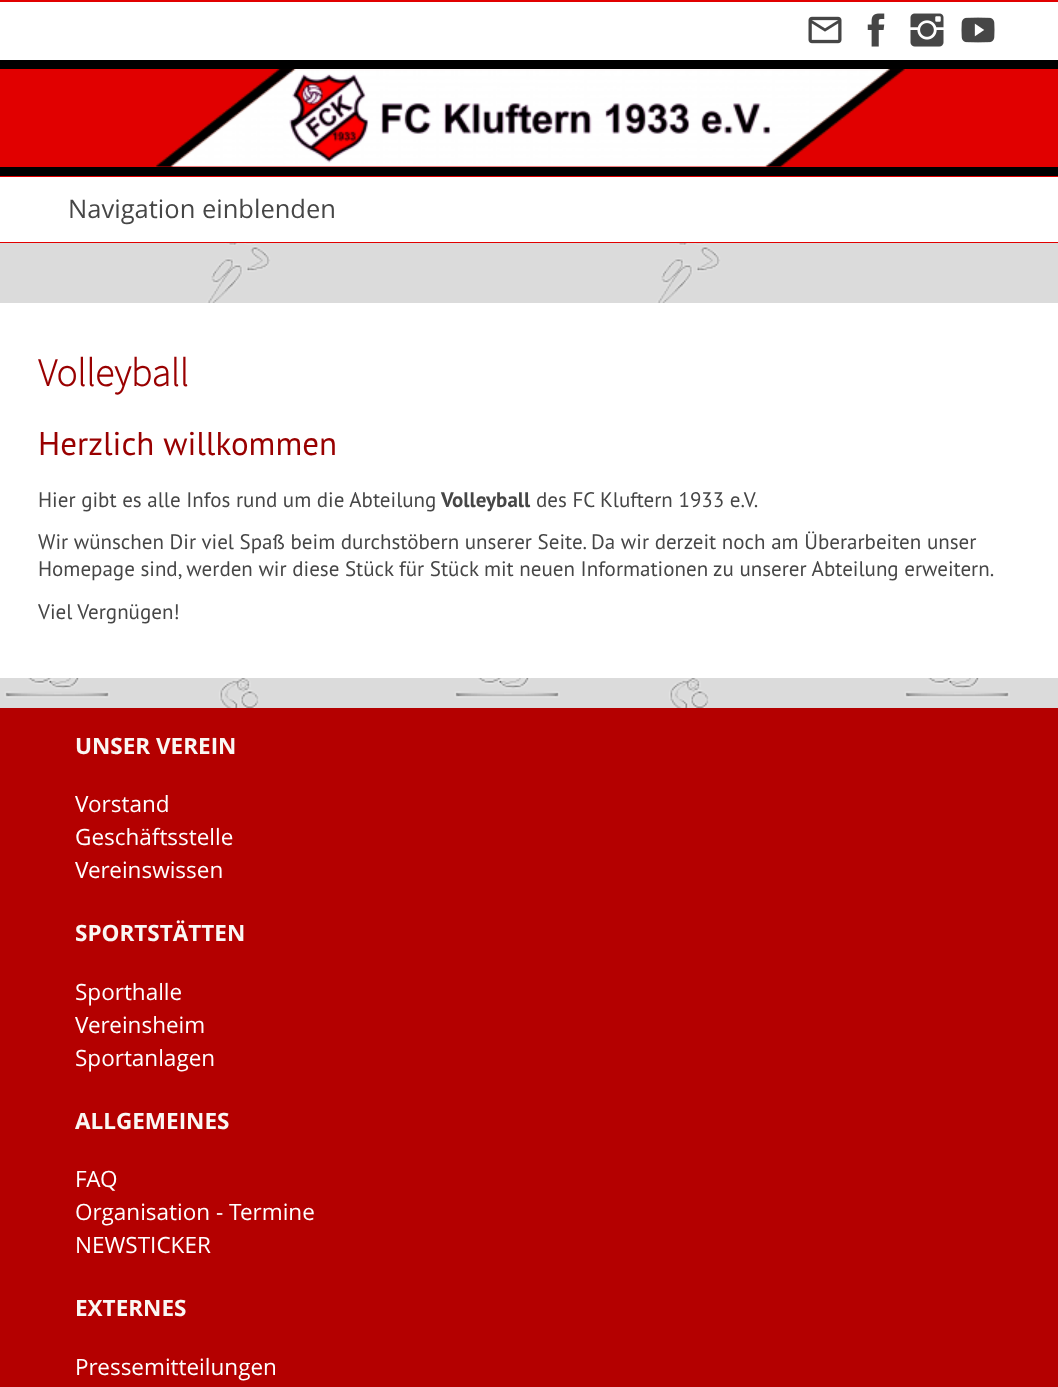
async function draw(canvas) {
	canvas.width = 1058;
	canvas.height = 1387;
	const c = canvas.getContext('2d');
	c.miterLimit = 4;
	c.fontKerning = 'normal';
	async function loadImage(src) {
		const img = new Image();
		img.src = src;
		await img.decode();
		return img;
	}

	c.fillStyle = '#fff';
	c.fillRect(0, 0, 1058, 1387);
	c.drawImage(await loadImage('img1.png'), 0, 243, 1058, 465);
	c.fillStyle = '#e10000';
	c.fillRect(0, 0, 1058, 2);
	c.drawImage(await loadImage('img2.png'), 808, 16, 34, 28);
	c.drawImage(await loadImage('img3.png'), 867, 13, 18, 34);
	c.drawImage(await loadImage('img4.png'), 910, 13, 34, 34);
	c.drawImage(await loadImage('img5.png'), 961, 17, 34, 26);
	c.fillStyle = '#000';
	c.fillRect(0, 60, 1058, 116);
	c.fillStyle = '#e10000';
	c.fillRect(0, 69, 1058, 98);
	c.drawImage(await loadImage('img6.png'), 154, 69, 751, 98);
	c.fillRect(0, 176, 1058, 67);
	c.fillStyle = '#fff';
	c.fillRect(0, 177, 1058, 65);
	c.font = '25.5px Open Sans';
	c.fillStyle = '#464646';
	c.fillText('Navigation einblenden', 68, 218);
	c.fillStyle = '#fff';
	c.fillRect(0, 303, 1058, 375);
	c.font = 'bold 39px Source Sans Pro';
	c.fillStyle = '#900';
	c.fillText('Volleyball', 38, 386);
	c.font = '33px PT Sans';
	c.fillText('Herzlich willkommen', 38, 455);
	c.font = '21px PT Sans';
	c.fillStyle = '#464646';
	c.fillText('Hier gibt es alle Infos rund um die Abteilung', 38, 507);
	c.font = 'bold 21px PT Sans';
	c.fillText('Volleyball', 441, 507);
	c.font = '21px PT Sans';
	for (const [text, x, y] of [
		['des FC Kluftern 1933 e.V.', 536, 507],
		['Wir wünschen Dir viel Spaß beim durchstöbern unserer Seite. Da wir derzeit noch am Überarbeiten unser', 38, 549],
		['Homepage sind, werden wir diese Stück für Stück mit neuen Informationen zu unserer Abteilung erweitern.', 38, 576],
		['Viel Vergnügen!', 38, 619],
	]) {
		c.fillText(text, x, y);
	}
	c.fillStyle = '#b40000';
	c.fillRect(0, 708, 1058, 679);
	c.font = 'bold 22.5px Open Sans';
	c.fillStyle = '#faf7f4';
	c.fillText('UNSER VEREIN', 75, 754);
	c.font = '22.5px Open Sans';
	c.fillStyle = '#fff';
	for (const [text, x, y] of [
		['Vorstand', 75, 812],
		['Geschäftsstelle', 75, 845],
		['Vereinswissen', 75, 878],
	]) {
		c.fillText(text, x, y);
	}
	c.font = 'bold 22.5px Open Sans';
	c.fillStyle = '#faf7f4';
	c.fillText('SPORTSTÄTTEN', 75, 941);
	c.font = '22.5px Open Sans';
	c.fillStyle = '#fff';
	for (const [text, x, y] of [
		['Sporthalle', 75, 1000],
		['Vereinsheim', 75, 1033],
		['Sportanlagen', 75, 1066],
	]) {
		c.fillText(text, x, y);
	}
	c.font = 'bold 22.5px Open Sans';
	c.fillStyle = '#faf7f4';
	c.fillText('ALLGEMEINES', 75, 1129);
	c.font = '22.5px Open Sans';
	c.fillStyle = '#fff';
	for (const [text, x, y] of [
		['FAQ', 75, 1187],
		['Organisation - Termine', 75, 1220],
		['NEWSTICKER', 75, 1253],
	]) {
		c.fillText(text, x, y);
	}
	c.font = 'bold 22.5px Open Sans';
	c.fillStyle = '#faf7f4';
	c.fillText('EXTERNES', 75, 1316);
	c.font = '22.5px Open Sans';
	c.fillStyle = '#fff';
	c.fillText('Pressemitteilungen', 75, 1375);
}

draw(document.querySelector('canvas'));
